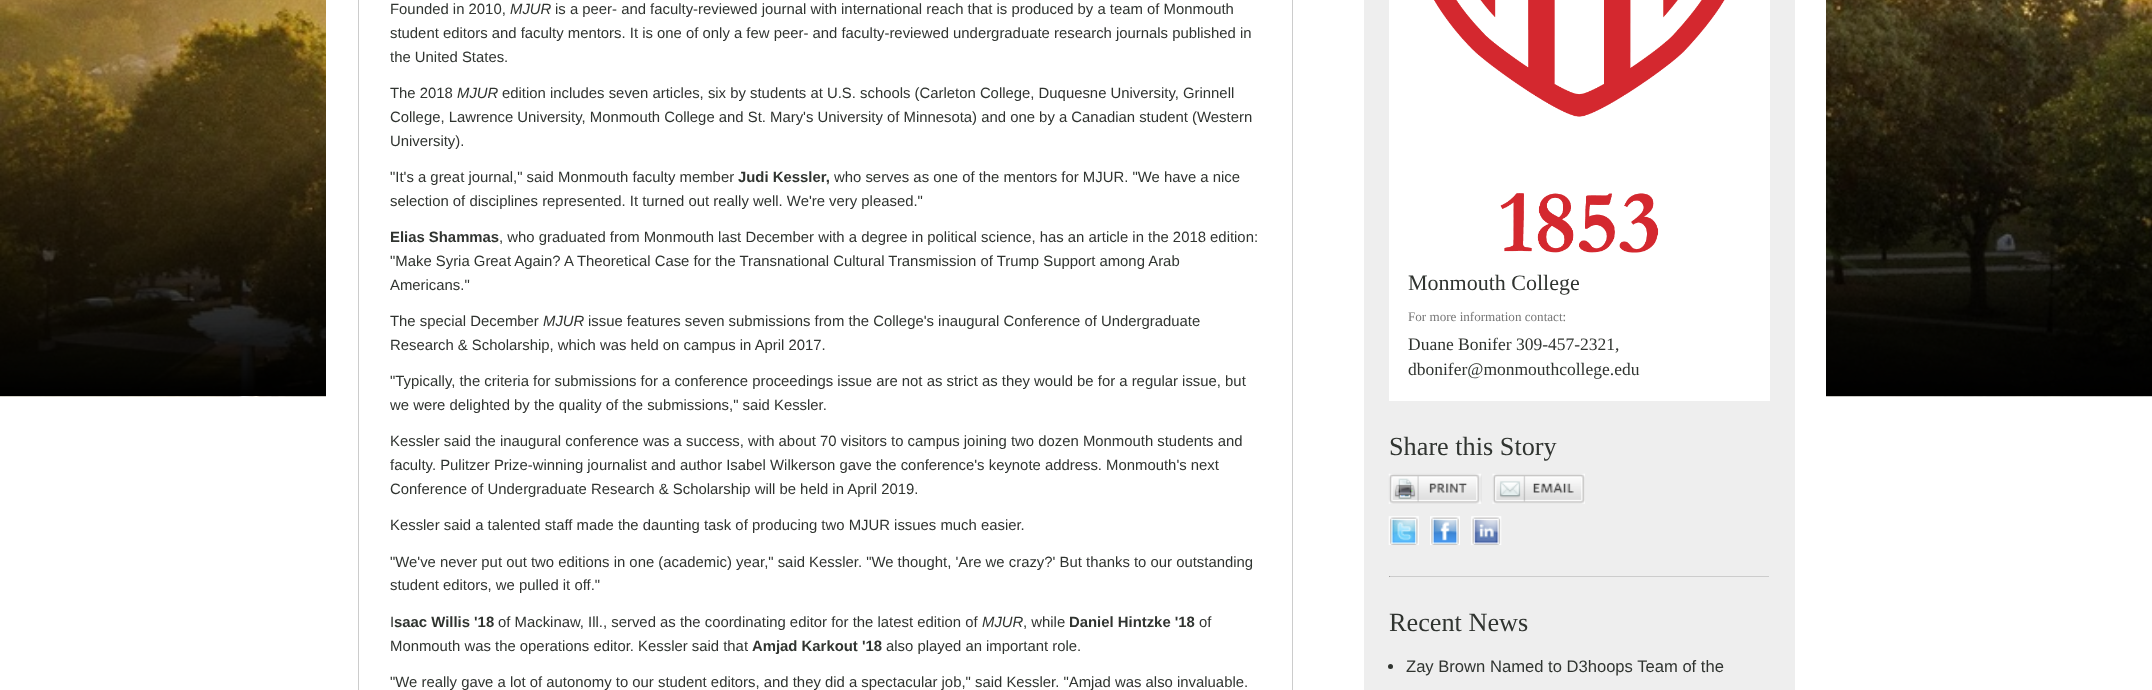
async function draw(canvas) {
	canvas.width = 2152;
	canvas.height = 690;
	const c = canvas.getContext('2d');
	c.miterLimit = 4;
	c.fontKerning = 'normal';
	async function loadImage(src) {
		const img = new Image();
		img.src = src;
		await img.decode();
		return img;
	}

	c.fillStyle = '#fff';
	c.fillRect(0, 0, 2152, 690);
	c.drawImage(await loadImage('img1.png'), 0, 0, 2152, 397);
	c.fillRect(326, 0, 1500, 397);
	c.strokeStyle = '#ccc';
	c.strokeRect(358.5, -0.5, 934, 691);
	c.font = '14.88px Liberation Sans';
	c.fillStyle = '#303430';
	c.fillText('Founded in 2010,', 390, 14);
	c.font = 'italic 14.88px Liberation Sans';
	c.fillText('MJUR', 510, 14);
	c.font = '14.88px Liberation Sans';
	for (const [text, x, y] of [
		['is a peer- and faculty-reviewed journal with international reach that is produced by a team of Monmouth', 555, 14],
		['student editors and faculty mentors. It is one of only a few peer- and faculty-reviewed undergraduate research journals published in', 390, 38],
		['the United States.', 390, 62],
		['The 2018', 390, 98],
	]) {
		c.fillText(text, x, y);
	}
	c.font = 'italic 14.88px Liberation Sans';
	c.fillText('MJUR', 457, 98);
	c.font = '14.88px Liberation Sans';
	for (const [text, x, y] of [
		['edition includes seven articles, six by students at U.S. schools (Carleton College, Duquesne University, Grinnell', 502, 98],
		['College, Lawrence University, Monmouth College and St. Mary\'s University of Minnesota) and one by a Canadian student (Western', 390, 122],
		['University).', 390, 146],
		['"It\'s a great journal," said Monmouth faculty member', 390, 182],
	]) {
		c.fillText(text, x, y);
	}
	c.font = 'bold 14.88px Liberation Sans';
	c.fillText('Judi Kessler,', 738, 182);
	c.font = '14.88px Liberation Sans';
	c.fillText('who serves as one of the mentors for MJUR. "We have a nice', 834, 182);
	c.fillText('selection of disciplines represented. It turned out really well. We\'re very pleased."', 390, 206);
	c.font = 'bold 14.88px Liberation Sans';
	c.fillText('Elias Shammas', 390, 242);
	c.font = '14.88px Liberation Sans';
	for (const [text, x, y] of [
		[', who graduated from Monmouth last December with a degree in political science, has an article in the 2018 edition:', 499, 242],
		['"Make Syria Great Again? A Theoretical Case for the Transnational Cultural Transmission of Trump Support among Arab', 390, 266],
		['Americans."', 390, 290],
		['The special December', 390, 326],
	]) {
		c.fillText(text, x, y);
	}
	c.font = 'italic 14.88px Liberation Sans';
	c.fillText('MJUR', 543, 326);
	c.font = '14.88px Liberation Sans';
	for (const [text, x, y] of [
		['issue features seven submissions from the College\'s inaugural Conference of Undergraduate', 588, 326],
		['Research & Scholarship, which was held on campus in April 2017.', 390, 350],
		['"Typically, the criteria for submissions for a conference proceedings issue are not as strict as they would be for a regular issue, but', 390, 386],
		['we were delighted by the quality of the submissions," said Kessler.', 390, 410],
		['Kessler said the inaugural conference was a success, with about 70 visitors to campus joining two dozen Monmouth students and', 390, 446],
		['faculty. Pulitzer Prize-winning journalist and author Isabel Wilkerson gave the conference\'s keynote address. Monmouth\'s next', 390, 470],
		['Conference of Undergraduate Research & Scholarship will be held in April 2019.', 390, 494],
		['Kessler said a talented staff made the daunting task of producing two MJUR issues much easier.', 390, 530],
		['"We\'ve never put out two editions in one (academic) year," said Kessler. "We thought, \'Are we crazy?\' But thanks to our outstanding', 390, 567],
		['student editors, we pulled it off."', 390, 590],
		['I', 390, 627],
	]) {
		c.fillText(text, x, y);
	}
	c.font = 'bold 14.88px Liberation Sans';
	c.fillText('saac Willis \'18', 394, 627);
	c.font = '14.88px Liberation Sans';
	c.fillText('of Mackinaw, Ill., served as the coordinating editor for the latest edition of', 498, 627);
	c.font = 'italic 14.88px Liberation Sans';
	c.fillText('MJUR', 982, 627);
	c.font = '14.88px Liberation Sans';
	c.fillText(', while', 1023, 627);
	c.font = 'bold 14.88px Liberation Sans';
	c.fillText('Daniel Hintzke \'18', 1069, 627);
	c.font = '14.88px Liberation Sans';
	c.fillText('of', 1199, 627);
	c.fillText('Monmouth was the operations editor. Kessler said that', 390, 651);
	c.font = 'bold 14.88px Liberation Sans';
	c.fillText('Amjad Karkout \'18', 752, 651);
	c.font = '14.88px Liberation Sans';
	c.fillText('also played an important role.', 886, 651);
	c.fillText('"We really gave a lot of autonomy to our student editors, and they did a spectacular job," said Kessler. "Amjad was also invaluable.', 390, 687);
	c.fillStyle = '#eee';
	c.fillRect(1364, 0, 431, 690);
	c.fillStyle = '#fff';
	c.fillRect(1389, 0, 381, 401);
	c.drawImage(await loadImage('img2.png'), 1434, 0, 291, 253);
	c.font = '22px Liberation Serif';
	c.fillStyle = '#303430';
	c.fillText('Monmouth College', 1408, 290);
	c.font = '13.1px Liberation Serif';
	c.fillStyle = '#777';
	c.fillText('For more information contact:', 1408, 321);
	c.font = '17.5px Liberation Serif';
	c.fillStyle = '#303430';
	c.fillText('Duane Bonifer 309-457-2321,', 1408, 350);
	c.fillText('dbonifer@monmouthcollege.edu', 1408, 375);
	c.font = '26.25px Liberation Serif';
	c.fillText('Share this Story', 1389, 455);
	c.drawImage(await loadImage('img3.png'), 1388, 473, 94, 31);
	c.drawImage(await loadImage('img4.png'), 1492, 473, 93, 31);
	c.drawImage(await loadImage('img5.png'), 1388, 516, 31, 29);
	c.drawImage(await loadImage('img6.png'), 1430, 516, 30, 29);
	c.drawImage(await loadImage('img7.png'), 1471, 516, 31, 29);
	for (const [x, y, w, h, color] of [
		[1389, 576, 381, 1, '#ccc'],
		[1769, 576, 1, 1, '#eee'],
		[1389, 576, 1, 1, '#9f9f9f'],
	]) {
		c.fillStyle = color;
		c.fillRect(x, y, w, h);
	}
	c.fillStyle = '#303430';
	c.fillText('Recent News', 1389, 631);
	c.beginPath();
	c.arc(1390.5, 666.5, 2.5, 0, 2 * Math.PI);
	c.fill();
	c.font = '16.6px Liberation Sans';
	c.fillText('Zay Brown Named to D3hoops Team of the', 1406, 672);
}

draw(document.querySelector('canvas'));
